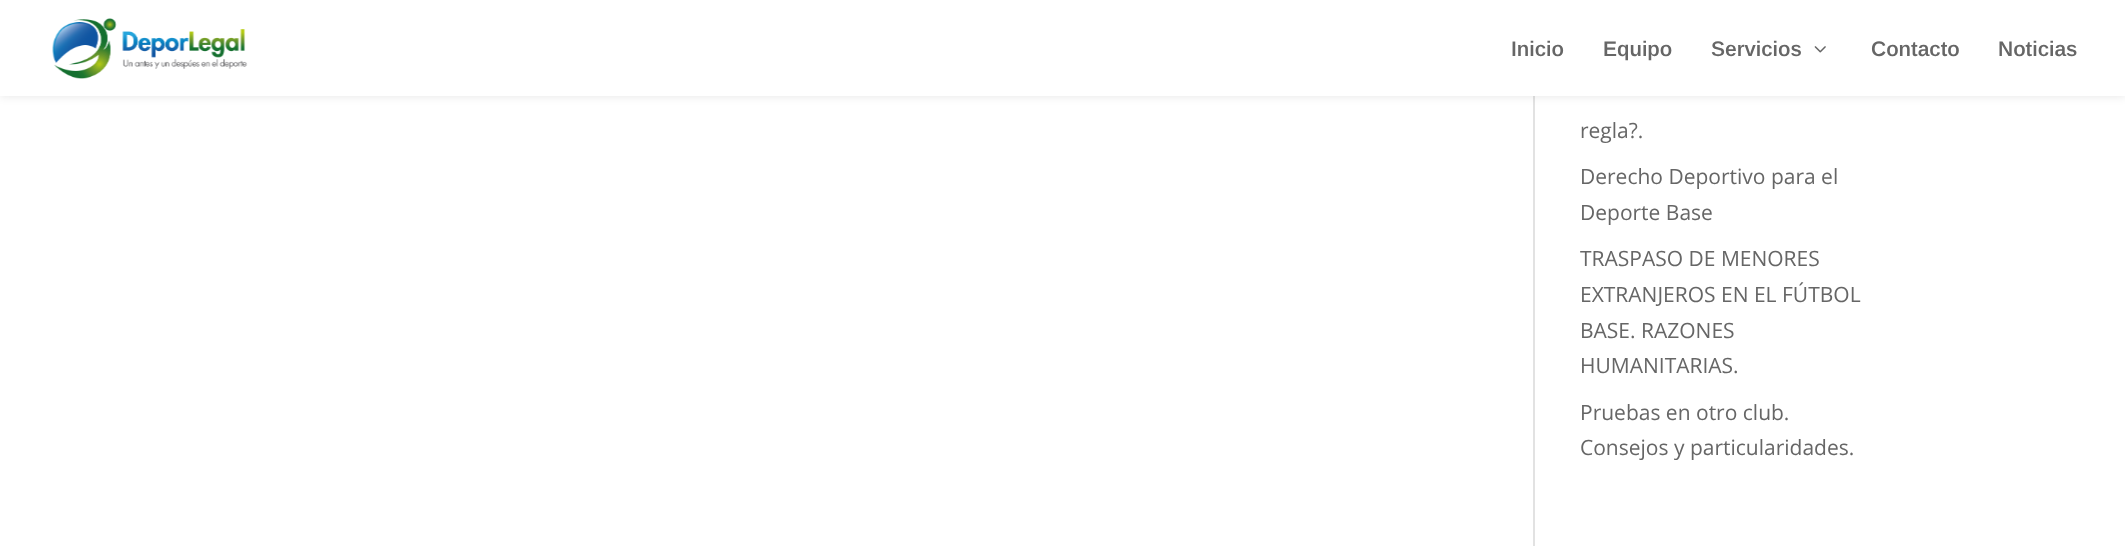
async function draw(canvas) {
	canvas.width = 2125;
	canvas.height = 546;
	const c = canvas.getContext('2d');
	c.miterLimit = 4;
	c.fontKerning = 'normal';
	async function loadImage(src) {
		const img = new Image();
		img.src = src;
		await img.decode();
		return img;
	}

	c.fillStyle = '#fff';
	c.fillRect(0, 0, 2125, 546);
	c.fillStyle = '#e2e2e2';
	c.fillRect(1533, 96, 2, 450);
	c.fillStyle = '#0000001a';
	c.filter = 'blur(5px)';
	c.beginPath();
	c.rect(0, 0, 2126, 96);
	c.fill();
	c.filter = 'none';
	c.fillStyle = '#fff';
	c.fillRect(0, 0, 2125, 96);
	c.drawImage(await loadImage('img1.png'), 52, 18, 196, 61);
	c.font = '600 21px Arimo';
	c.fillStyle = '#666';
	for (const [text, x, y] of [
		['Inicio', 1511, 56],
		['Equipo', 1603, 56],
		['Servicios', 1711, 56],
	]) {
		c.fillText(text, x, y);
	}
	c.drawImage(await loadImage('img2.png'), 1814, 46, 12, 7);
	c.fillText('Contacto', 1871, 56);
	c.fillText('Noticias', 1998, 56);
	c.font = '21px Open Sans';
	for (const [text, x, y] of [
		['regla?.', 1580, 138],
		['Derecho Deportivo para el', 1580, 184],
		['Deporte Base', 1580, 220],
		['TRASPASO DE MENORES', 1580, 266],
		['EXTRANJEROS EN EL FÚTBOL', 1580, 302],
		['BASE. RAZONES', 1580, 338],
		['HUMANITARIAS.', 1580, 373],
		['Pruebas en otro club.', 1580, 420],
		['Consejos y particularidades.', 1580, 455],
	]) {
		c.fillText(text, x, y);
	}
}

draw(document.querySelector('canvas'));
